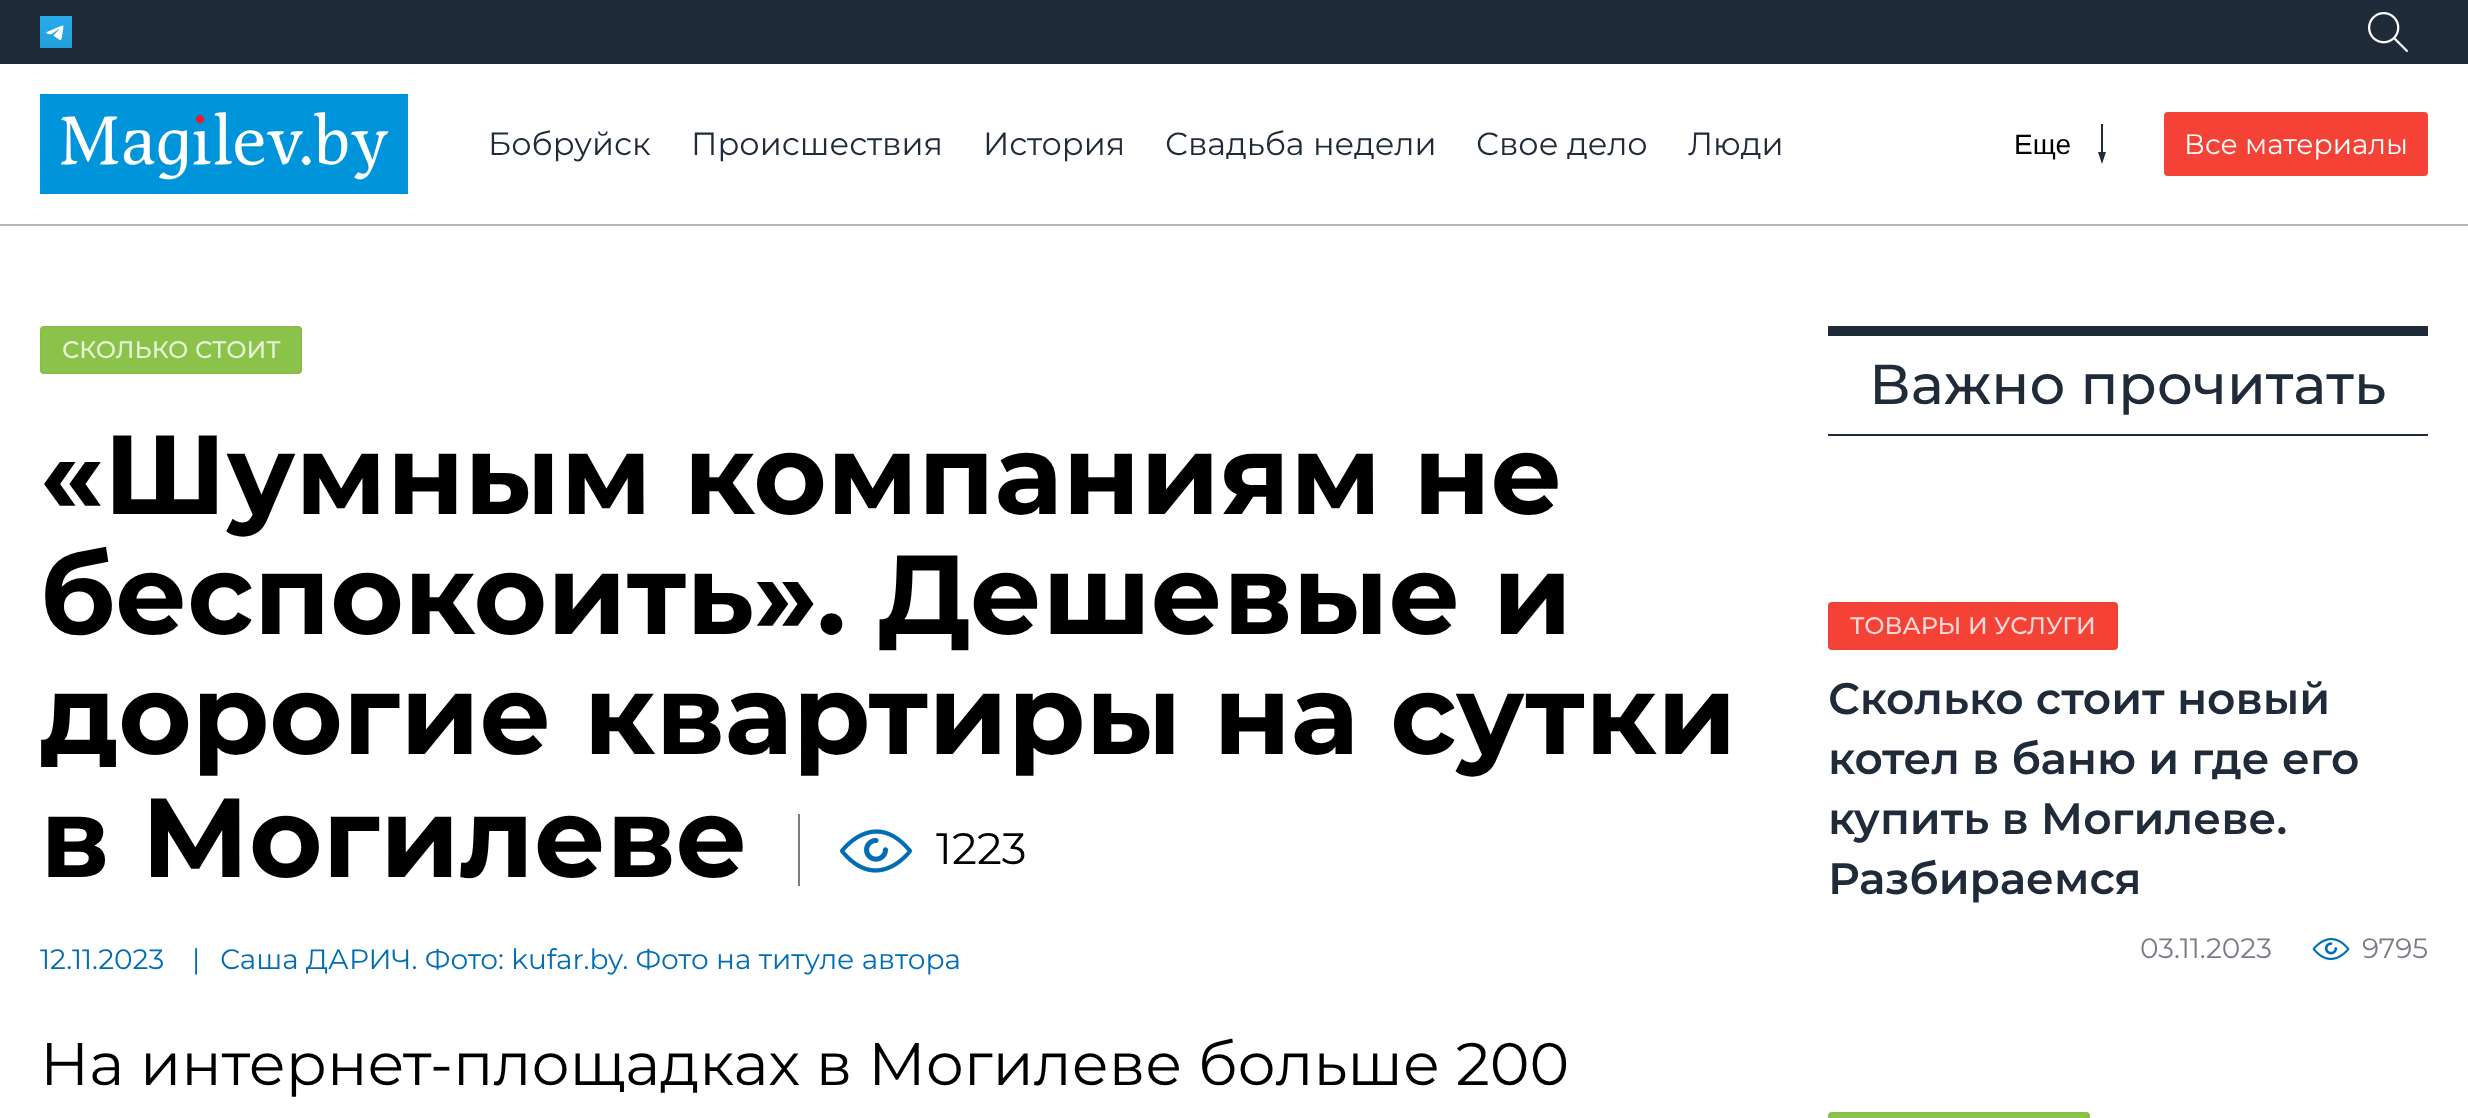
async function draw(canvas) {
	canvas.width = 2468;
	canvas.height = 1118;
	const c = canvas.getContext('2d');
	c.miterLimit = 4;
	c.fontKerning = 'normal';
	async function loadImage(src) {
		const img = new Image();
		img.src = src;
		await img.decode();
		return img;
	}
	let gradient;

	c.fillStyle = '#fff';
	c.fillRect(0, 0, 2468, 1118);
	c.fillStyle = '#b2b5ba';
	c.fillRect(0, 224, 2468, 2);
	c.fillStyle = '#202b39';
	c.fillRect(0, 0, 2468, 64);
	gradient = c.createLinearGradient(56, 16, 56, 48);
	gradient.addColorStop(0, '#2aabee');
	gradient.addColorStop(1, '#229ed9');
	c.fillStyle = gradient;
	c.fillRect(40, 16, 32, 32);
	c.drawImage(await loadImage('img1.png'), 46, 25, 18, 15);
	c.drawImage(await loadImage('img2.png'), 2368, 12, 40, 40);
	c.drawImage(await loadImage('img3.png'), 40, 94, 368, 100);
	c.font = '32px Montserrat';
	c.fillStyle = '#202b39';
	for (const [text, x, y] of [
		['Бобруйск', 488, 155],
		['Происшествия', 691, 155],
		['История', 983, 155],
		['Свадьба недели', 1165, 155],
		['Свое дело', 1476, 155],
		['Люди', 1688, 155],
	]) {
		c.fillText(text, x, y);
	}
	c.font = '28px Liberation Sans';
	c.fillStyle = '#000';
	c.fillText('Еще', 2014, 154);
	c.fillStyle = '#202b39';
	c.beginPath();
	c.moveTo(2101, 152);
	c.lineTo(2101, 124);
	c.lineTo(2103, 124);
	c.lineTo(2103, 152);
	c.lineTo(2106, 152);
	c.lineTo(2102, 164);
	c.lineTo(2098, 152);
	c.closePath();
	c.fill();
	c.fillStyle = '#f44336';
	c.beginPath();
	c.roundRect(2164, 112, 264, 64, 4);
	c.fill();
	c.font = '28px Montserrat';
	c.fillStyle = '#fff';
	c.fillText('Все материалы', 2184, 154);
	c.fillStyle = '#8bc34a';
	c.beginPath();
	c.roundRect(41, 327, 260, 46, 3);
	c.fill();
	c.strokeStyle = '#87bd48';
	c.lineWidth = 2;
	c.stroke();
	c.font = '500 24px Montserrat';
	c.fillStyle = '#e8f3db';
	c.fillText('СКОЛЬКО СТОИТ', 62, 358);
	c.font = 'bold 112px Montserrat';
	c.fillStyle = '#000';
	for (const [text, x, y] of [
		['«Шумным компаниям не', 40, 514],
		['беспокоить». Дешевые и', 40, 634],
		['дорогие квартиры на сутки', 40, 754],
		['в Могилеве', 40, 877],
	]) {
		c.fillText(text, x, y);
	}
	c.drawImage(await loadImage('img4.png'), 840, 829, 72, 44);
	c.fillStyle = '#787d85';
	c.fillRect(798, 814, 2, 72);
	c.font = '44px Montserrat';
	c.fillStyle = '#000';
	c.fillText('1223', 936, 864);
	c.font = '28px Montserrat';
	c.fillStyle = '#006db5';
	for (const [text, x, y] of [
		['12.11.2023', 40, 969],
		['|', 192, 969],
		['Саша ДАРИЧ. Фото: kufar.by. Фото на титуле автора', 220, 969],
	]) {
		c.fillText(text, x, y);
	}
	c.font = '60px Montserrat';
	c.fillStyle = '#000';
	c.fillText('На интернет-площадках в Могилеве больше 200', 40, 1085);
	c.fillStyle = '#202b39';
	c.fillRect(1828, 326, 600, 10);
	c.fillRect(1828, 434, 600, 2);
	c.font = '500 56px Montserrat';
	c.fillText('Важно прочитать', 1869, 404);
	c.fillStyle = '#f44336';
	c.beginPath();
	c.roundRect(1829, 603, 288, 46, 3);
	c.fill();
	c.strokeStyle = '#ed4134';
	c.stroke();
	c.font = '500 24px Montserrat';
	c.fillStyle = '#fdd9d7';
	c.fillText('ТОВАРЫ И УСЛУГИ', 1850, 634);
	c.font = '600 44px Montserrat';
	c.fillStyle = '#202b39';
	for (const [text, x, y] of [
		['Сколько стоит новый', 1828, 714],
		['котел в баню и где его', 1828, 774],
		['купить в Могилеве.', 1828, 834],
		['Разбираемся', 1828, 894],
	]) {
		c.fillText(text, x, y);
	}
	c.font = '28px Montserrat';
	c.fillStyle = '#787d85';
	c.fillText('03.11.2023', 2140, 958);
	c.drawImage(await loadImage('img5.png'), 2312, 938, 38, 22);
	c.fillText('9795', 2362, 958);
	c.fillStyle = '#8bc34a';
	c.beginPath();
	c.roundRect(1829, 1113, 260, 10, 3);
	c.fill();
	c.strokeStyle = '#87bd48';
	c.stroke();
}

draw(document.querySelector('canvas'));
